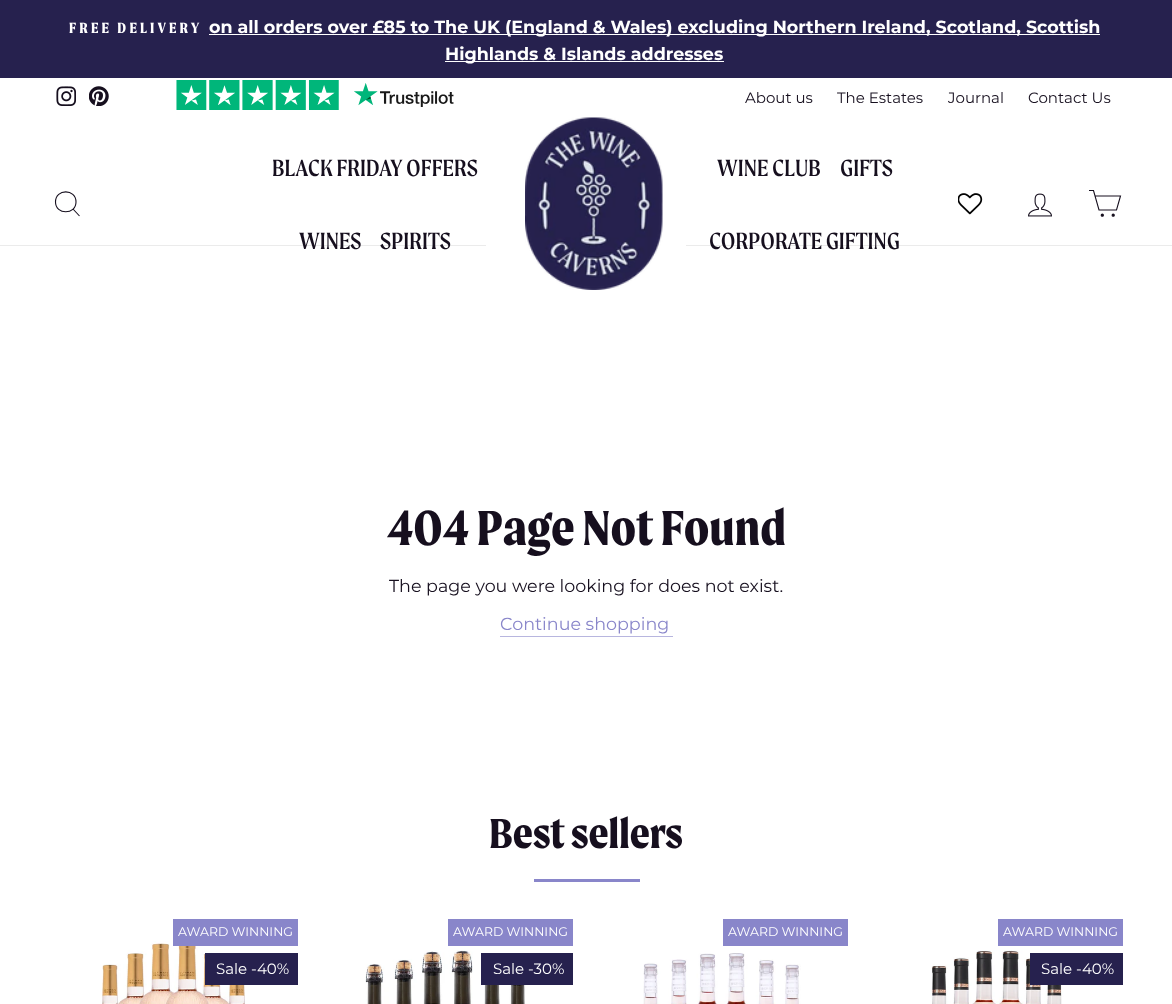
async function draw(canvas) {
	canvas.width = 1172;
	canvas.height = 1004;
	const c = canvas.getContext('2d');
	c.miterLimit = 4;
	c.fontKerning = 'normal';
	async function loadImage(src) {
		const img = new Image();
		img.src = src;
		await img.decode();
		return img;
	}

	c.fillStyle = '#fff';
	c.fillRect(0, 0, 1172, 1004);
	c.fillStyle = '#26214e';
	c.fillRect(0, 0, 1172, 78);
	c.letterSpacing = '3.1px';
	c.font = 'bold 15.75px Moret';
	c.fillStyle = '#fff';
	c.fillText('FREE DELIVERY', 69, 33);
	c.fillRect(209, 34, 891, 1);
	c.letterSpacing = '0px';
	c.font = 'bold 17.5px Montserrat';
	c.fillText('on all orders over £85 to The UK (England & Wales) excluding Northern Ireland, Scotland, Scottish', 209, 33);
	c.fillRect(445, 61, 279, 1);
	c.fillText('Highlands & Islands addresses', 445, 60);
	c.drawImage(await loadImage('img1.png'), 56, 86, 20, 20);
	c.drawImage(await loadImage('img2.png'), 89, 86, 20, 20);
	c.drawImage(await loadImage('img3.png'), 176, 80, 278, 30);
	c.font = '15px Montserrat';
	c.fillStyle = '#160f1e';
	for (const [text, x, y] of [
		['About us', 745, 103],
		['The Estates', 837, 103],
		['Journal', 948, 103],
		['Contact Us', 1028, 103],
	]) {
		c.fillText(text, x, y);
	}
	c.fillStyle = '#ebebeb';
	c.fillRect(0, 245, 486, 1);
	c.beginPath();
	c.moveTo(76, 202);
	c.bezierCurveTo(76, 215, 55.5, 215, 55.5, 202);
	c.bezierCurveTo(55.5, 188.5, 76, 188.5, 76, 202);
	c.closePath();
	c.moveTo(79.5, 216);
	c.lineTo(73, 209);
	c.strokeStyle = '#160f1e';
	c.lineWidth = 1.1;
	c.stroke();
	c.font = '25px Moret';
	c.fillStyle = '#160f1e';
	for (const [text, x, y] of [
		['BLACK FRIDAY OFFERS', 272, 176],
		['WINES', 299, 249],
		['SPIRITS', 380, 249],
	]) {
		c.fillText(text, x, y);
	}
	c.drawImage(await loadImage('img4.png'), 525, 117, 138, 173);
	for (const [text, x, y] of [
		['WINE CLUB', 717, 176],
		['GIFTS', 840, 176],
		['CORPORATE GIFTING', 709, 249],
	]) {
		c.fillText(text, x, y);
	}
	c.drawImage(await loadImage('img5.png'), 958, 193, 25, 22);
	c.drawImage(await loadImage('img6.png'), 1028, 193, 24, 24);
	c.beginPath();
	c.moveTo(1095, 196);
	c.lineTo(1120.5, 196);
	c.lineTo(1116.5, 210);
	c.lineTo(1099, 210);
	c.lineTo(1093.5, 190.5);
	c.lineTo(1089, 190.5);
	c.stroke();
	c.beginPath();
	c.arc(1102.3, 215.2, 1.1, 0, 2 * Math.PI);
	c.fill();
	c.stroke();
	c.beginPath();
	c.arc(1113.2, 215.2, 1.1, 0, 2 * Math.PI);
	c.fill();
	c.stroke();
	c.fillStyle = '#00000014';
	c.fillRect(686, 245, 486, 1);
	c.font = 'bold 52.5px Moret';
	c.fillStyle = '#160f1e';
	c.fillText('404 Page Not Found', 387, 545);
	c.font = '17.5px Montserrat';
	c.fillText('The page you were looking for does not exist.', 389, 592);
	c.fillStyle = '#b8b6df';
	c.fillRect(500, 636, 173, 1);
	c.fillStyle = '#8986ca';
	c.fillText('Continue shopping', 500, 630);
	c.font = 'bold 44.5px Moret';
	c.fillStyle = '#160f1e';
	c.fillText('Best sellers', 489, 848);
	c.fillStyle = '#8986ca';
	c.fillRect(534, 879, 106, 3);
	c.drawImage(await loadImage('img7.png'), 102, 941, 143, 63);
	c.fillRect(173, 919, 125, 27);
	c.font = '12.5px Montserrat';
	c.fillStyle = '#fff';
	c.fillText('AWARD WINNING', 178, 936);
	c.fillStyle = '#26214e';
	c.fillRect(205, 953, 93, 32);
	c.font = '15px Montserrat';
	c.fillStyle = '#fff';
	c.fillText('Sale -40%', 216, 974);
	c.fillStyle = '#8986ca';
	c.fillRect(448, 919, 125, 27);
	c.font = '12.5px Montserrat';
	c.fillStyle = '#fff';
	c.fillText('AWARD WINNING', 453, 936);
	c.drawImage(await loadImage('img8.png'), 365, 950, 163, 54);
	c.fillStyle = '#26214e';
	c.fillRect(481, 953, 92, 32);
	c.font = '15px Montserrat';
	c.fillStyle = '#fff';
	c.fillText('Sale -30%', 493, 974);
	c.fillStyle = '#8986ca';
	c.fillRect(723, 919, 125, 27);
	c.font = '12.5px Montserrat';
	c.fillStyle = '#fff';
	c.fillText('AWARD WINNING', 728, 936);
	c.drawImage(await loadImage('img9.png'), 643, 953, 158, 51);
	c.fillStyle = '#8986ca';
	c.fillRect(998, 919, 125, 27);
	c.fillStyle = '#fff';
	c.fillText('AWARD WINNING', 1003, 936);
	c.drawImage(await loadImage('img10.png'), 931, 950, 133, 54);
	c.fillStyle = '#26214e';
	c.fillRect(1030, 953, 93, 32);
	c.font = '15px Montserrat';
	c.fillStyle = '#fff';
	c.fillText('Sale -40%', 1041, 974);
}

draw(document.querySelector('canvas'));
